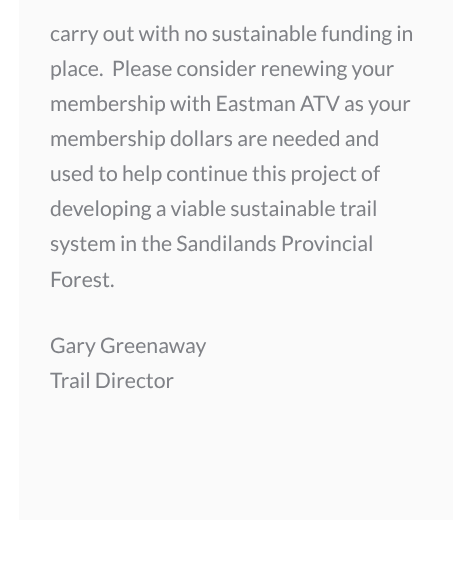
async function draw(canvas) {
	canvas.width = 471;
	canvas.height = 569;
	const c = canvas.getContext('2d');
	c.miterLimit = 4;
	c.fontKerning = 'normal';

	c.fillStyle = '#fff';
	c.fillRect(0, 0, 471, 569);
	c.fillStyle = '#fafafa';
	c.fillRect(19, 0, 434, 520);
	c.font = '21.25px Lato';
	c.fillStyle = '#7f8186';
	for (const [text, x, y] of [
		['carry out with no sustainable funding in', 50, 41],
		['place.  Please consider renewing your', 50, 76],
		['membership with Eastman ATV as your', 50, 111],
		['membership dollars are needed and', 50, 146],
		['used to help continue this project of', 50, 181],
		['developing a viable sustainable trail', 50, 216],
		['system in the Sandilands Provincial', 50, 251],
		['Forest.', 50, 287],
		['Gary Greenaway', 50, 353],
		['Trail Director', 50, 388],
	]) {
		c.fillText(text, x, y);
	}
}

draw(document.querySelector('canvas'));
